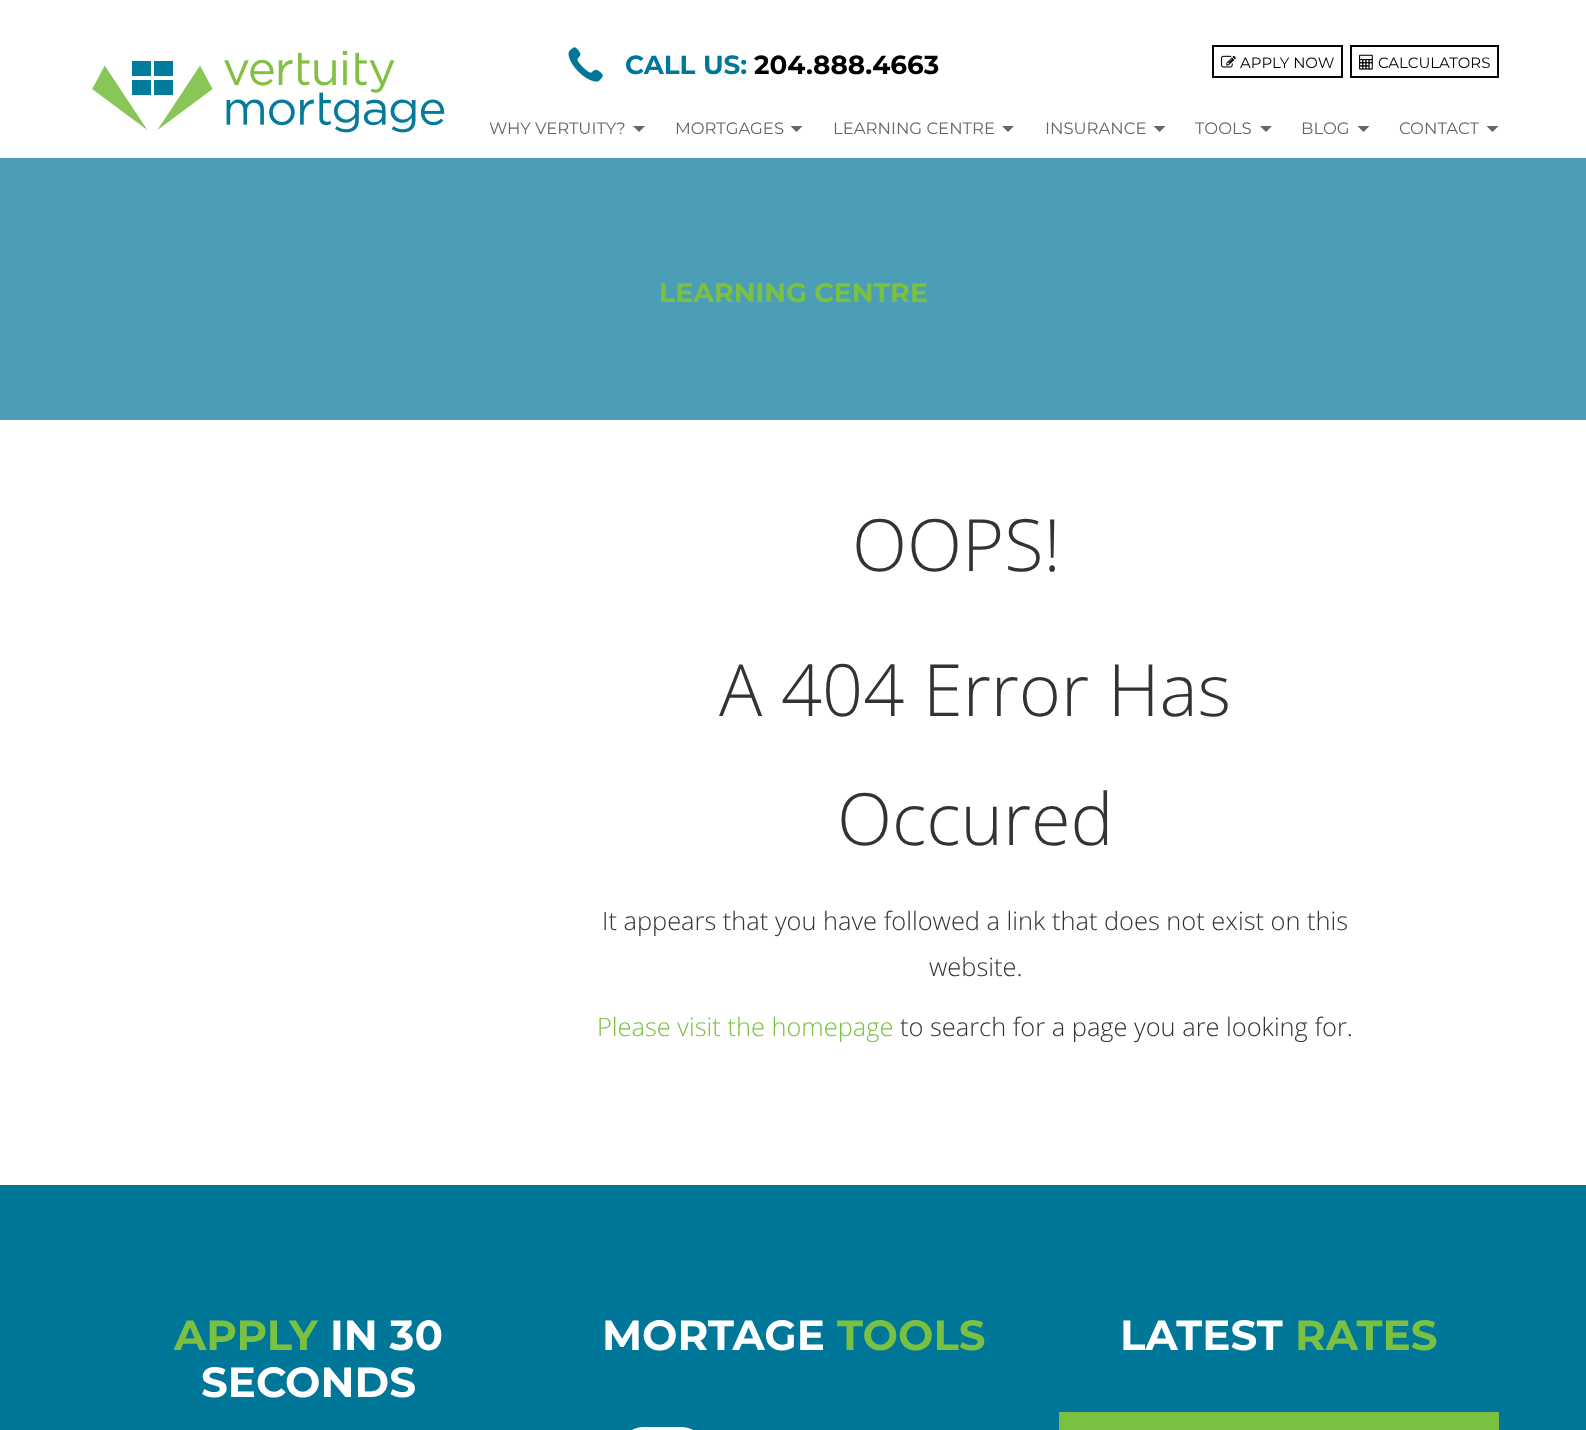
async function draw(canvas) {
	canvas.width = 1586;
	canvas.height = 1430;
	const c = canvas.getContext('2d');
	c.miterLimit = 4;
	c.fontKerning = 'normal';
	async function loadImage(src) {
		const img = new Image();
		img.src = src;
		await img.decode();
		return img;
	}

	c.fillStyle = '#fff';
	c.fillRect(0, 0, 1586, 1430);
	c.drawImage(await loadImage('img1.png'), 92, 50, 353, 83);
	c.drawImage(await loadImage('img2.png'), 568, 47, 35, 35);
	c.font = 'bold 26.25px Montserrat';
	c.fillStyle = '#007698';
	c.fillText('CALL US:', 625, 74);
	c.fillStyle = '#000';
	c.fillText('204.888.4663', 754, 74);
	c.strokeStyle = '#080504';
	c.lineWidth = 2;
	c.strokeRect(1213, 46, 129, 31);
	c.drawImage(await loadImage('img3.png'), 1221, 55, 15, 13);
	c.font = '100 15px Montserrat';
	c.fillStyle = '#080504';
	c.fillText('APPLY NOW', 1240, 68);
	c.strokeRect(1351, 46, 147, 31);
	c.drawImage(await loadImage('img4.png'), 1359, 54, 14, 16);
	c.fillText('CALCULATORS', 1378, 68);
	c.font = '100 16.5px Montserrat';
	c.fillStyle = '#666';
	c.fillText('WHY VERTUITY?', 489, 134);
	c.beginPath();
	c.moveTo(633, 126);
	c.lineTo(645, 126);
	c.lineTo(639, 132);
	c.closePath();
	c.fill();
	c.fillText('MORTGAGES', 675, 134);
	c.beginPath();
	c.moveTo(790.5, 126);
	c.lineTo(802.5, 126);
	c.lineTo(796.5, 132);
	c.closePath();
	c.fill();
	c.fillText('LEARNING CENTRE', 833, 134);
	c.beginPath();
	c.moveTo(1002, 126);
	c.lineTo(1014, 126);
	c.lineTo(1008, 132);
	c.closePath();
	c.fill();
	c.fillText('INSURANCE', 1045, 134);
	c.beginPath();
	c.moveTo(1153.5, 126);
	c.lineTo(1165.5, 126);
	c.lineTo(1159.5, 132);
	c.closePath();
	c.fill();
	c.fillText('TOOLS', 1195, 134);
	c.beginPath();
	c.moveTo(1260, 126);
	c.lineTo(1272, 126);
	c.lineTo(1266, 132);
	c.closePath();
	c.fill();
	c.fillText('BLOG', 1301, 134);
	c.beginPath();
	c.moveTo(1357.5, 126);
	c.lineTo(1369.5, 126);
	c.lineTo(1363.5, 132);
	c.closePath();
	c.fill();
	c.fillText('CONTACT', 1399, 134);
	c.beginPath();
	c.moveTo(1486.5, 126);
	c.lineTo(1498.5, 126);
	c.lineTo(1492.5, 132);
	c.closePath();
	c.fill();
	c.fillStyle = '#4b9eb6';
	c.fillRect(0, 158, 1586, 262);
	c.font = 'bold 26.9px Montserrat';
	c.fillStyle = '#7ac142';
	c.fillText('LEARNING CENTRE', 659, 302);
	c.font = '300 72px Open Sans';
	c.fillStyle = '#333';
	for (const [text, x, y] of [
		['OOPS!', 852, 571],
		['A 404 Error Has', 719, 716],
		['Occured', 837, 845],
	]) {
		c.fillText(text, x, y);
	}
	c.font = '300 25.4px Open Sans';
	c.fillText('It appears that you have followed a link that does not exist on this', 602, 930);
	c.fillText('website.', 929, 976);
	c.fillStyle = '#7ac142';
	c.fillText('Please visit the homepage', 597, 1036);
	c.fillStyle = '#333';
	c.fillText('to search for a page you are looking for.', 900, 1036);
	c.fillStyle = '#007698';
	c.fillRect(0, 1185, 1586, 245);
	c.font = 'bold 42px Montserrat';
	c.fillStyle = '#7ac142';
	c.fillText('APPLY', 174, 1350);
	c.fillStyle = '#fff';
	for (const [text, x, y] of [
		['IN 30', 330, 1350],
		['SECONDS', 201, 1397],
		['MORTAGE', 602, 1350],
	]) {
		c.fillText(text, x, y);
	}
	c.fillStyle = '#7ac142';
	c.fillText('TOOLS', 837, 1350);
	c.fillStyle = '#fff';
	c.beginPath();
	c.roundRect(621, 1427, 83, 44, 41);
	c.fill();
	c.fillText('LATEST', 1120, 1350);
	c.fillStyle = '#7ac142';
	c.fillText('RATES', 1295, 1350);
	c.fillRect(1059, 1412, 440, 18);
}

draw(document.querySelector('canvas'));
